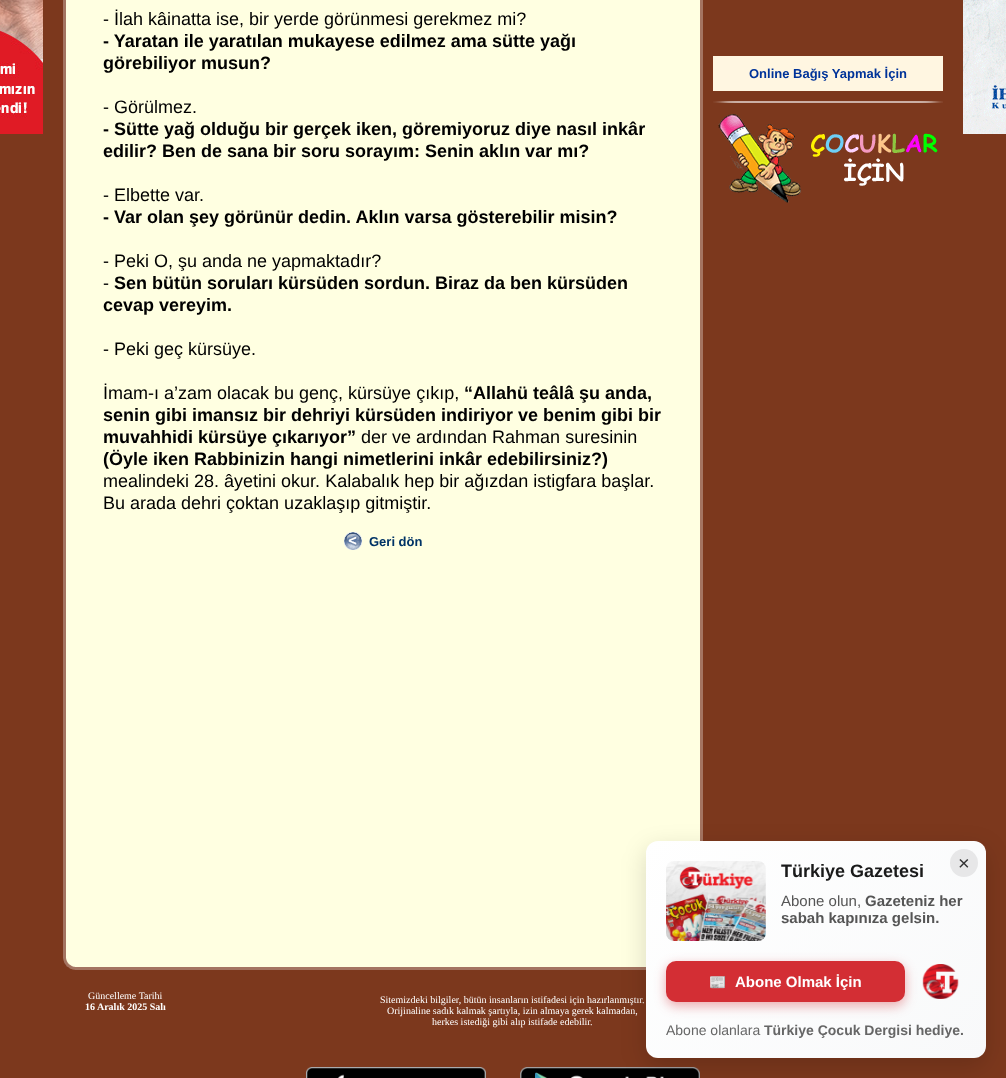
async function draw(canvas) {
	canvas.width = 1006;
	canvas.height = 1078;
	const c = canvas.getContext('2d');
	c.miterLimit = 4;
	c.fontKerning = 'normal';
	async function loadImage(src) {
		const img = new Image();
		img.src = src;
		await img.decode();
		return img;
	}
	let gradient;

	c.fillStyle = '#7c381d';
	c.fillRect(0, 0, 1006, 1078);
	c.drawImage(await loadImage('img1.png'), 0, 0, 43, 134);
	c.drawImage(await loadImage('img2.png'), 963, 0, 43, 134);
	c.fillStyle = '#a47461';
	c.fillRect(63, 0, 3, 958);
	c.fillStyle = '#ffffe1';
	c.fillRect(66, 0, 634, 958);
	c.font = '18px Liberation Sans';
	c.fillStyle = '#000';
	c.fillText('- İlah kâinatta ise, bir yerde görünmesi gerekmez mi?', 103, 25);
	c.font = 'bold 18px Liberation Sans';
	c.fillText('- Yaratan ile yaratılan mukayese edilmez ama sütte yağı', 103, 47);
	c.fillText('görebiliyor musun?', 103, 69);
	c.font = '18px Liberation Sans';
	c.fillText('- Görülmez.', 103, 113);
	c.font = 'bold 18px Liberation Sans';
	c.fillText('- Sütte yağ olduğu bir gerçek iken, göremiyoruz diye nasıl inkâr', 103, 135);
	c.fillText('edilir? Ben de sana bir soru sorayım: Senin aklın var mı?', 103, 157);
	c.font = '18px Liberation Sans';
	c.fillText('- Elbette var.', 103, 201);
	c.font = 'bold 18px Liberation Sans';
	c.fillText('- Var olan şey görünür dedin. Aklın varsa gösterebilir misin?', 103, 223);
	c.font = '18px Liberation Sans';
	c.fillText('- Peki O, şu anda ne yapmaktadır?', 103, 267);
	c.fillText('-', 103, 289);
	c.font = 'bold 18px Liberation Sans';
	c.fillText('Sen bütün soruları kürsüden sordun. Biraz da ben kürsüden', 114, 289);
	c.fillText('cevap vereyim.', 103, 311);
	c.font = '18px Liberation Sans';
	c.fillText('- Peki geç kürsüye.', 103, 355);
	c.fillText('İmam-ı a’zam olacak bu genç, kürsüye çıkıp,', 103, 399);
	c.font = 'bold 18px Liberation Sans';
	for (const [text, x, y] of [
		['“Allahü teâlâ şu anda,', 464, 399],
		['senin gibi imansız bir dehriyi kürsüden indiriyor ve benim gibi bir', 103, 421],
		['muvahhidi kürsüye çıkarıyor”', 103, 443],
	]) {
		c.fillText(text, x, y);
	}
	c.font = '18px Liberation Sans';
	c.fillText('der ve ardından Rahman suresinin', 361, 443);
	c.font = 'bold 18px Liberation Sans';
	c.fillText('(Öyle iken Rabbinizin hangi nimetlerini inkâr edebilirsiniz?)', 103, 465);
	c.font = '18px Liberation Sans';
	c.fillText('mealindeki 28. âyetini okur. Kalabalık hep bir ağızdan istigfara başlar.', 103, 487);
	c.fillText('Bu arada dehri çoktan uzaklaşıp gitmiştir.', 103, 509);
	c.drawImage(await loadImage('img3.png'), 344, 532, 18, 18);
	c.font = 'bold 13px Liberation Sans';
	c.fillStyle = '#036';
	c.fillText('Geri dön', 369, 546);
	c.fillStyle = '#a47461';
	c.fillRect(700, 0, 3, 841);
	c.drawImage(await loadImage('img4.png'), 63, 958, 583, 12);
	c.fillStyle = '#fff6e1';
	c.fillRect(713, 56, 230, 35);
	c.fillStyle = '#039';
	c.fillText('Online Bağış Yapmak İçin', 749, 78);
	c.drawImage(await loadImage('img5.png'), 713, 101, 230, 2);
	c.drawImage(await loadImage('img6.png'), 718, 114, 220, 89);
	c.font = '10px Liberation Serif';
	c.fillStyle = '#fff';
	c.fillText('Güncelleme Tarihi', 88, 999);
	c.font = 'bold 10px Liberation Serif';
	c.fillText('16 Aralık 2025 Salı', 85, 1010);
	c.font = '10px Liberation Serif';
	for (const [text, x, y] of [
		['Sitemizdeki bilgiler, bütün insanların istifadesi için hazırlanmıştır.', 380, 1003],
		['Orijinaline sadık kalmak şartıyla, izin almaya gerek kalmadan,', 387, 1014],
		['herkes istediği gibi alıp istifade edebilir.', 432, 1025],
	]) {
		c.fillText(text, x, y);
	}
	c.drawImage(await loadImage('img10.png'), 520, 1067, 180, 11);
	c.fillStyle = '#00000026';
	c.filter = 'blur(12px)';
	c.beginPath();
	c.roundRect(646, 849, 340, 217, 12);
	c.fill();
	c.filter = 'none';
	gradient = c.createLinearGradient(677, 810, 955, 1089);
	gradient.addColorStop(0, '#fff');
	gradient.addColorStop(1, '#f8f9fa');
	c.fillStyle = gradient;
	c.beginPath();
	c.roundRect(646, 841, 340, 217, 12);
	c.fill();
	c.drawImage(await loadImage('img7.png'), 666, 861, 100, 80);
	c.font = 'bold 18px Liberation Sans';
	c.fillStyle = '#1a1a1a';
	c.fillText('Türkiye Gazetesi', 781, 877);
	c.font = '15px Liberation Sans';
	c.fillStyle = '#555';
	c.fillText('Abone olun,', 781, 906);
	c.font = 'bold 15px Liberation Sans';
	c.fillText('Gazeteniz her', 865, 906);
	c.fillText('sabah kapınıza gelsin.', 781, 923);
	c.fillStyle = '#e7e7e8';
	c.beginPath();
	c.arc(964, 863, 14, 0, 2 * Math.PI);
	c.fill();
	c.font = '20px Liberation Sans';
	c.fillStyle = '#333';
	c.fillText('×', 958, 870);
	c.fillStyle = '#d32e3466';
	c.filter = 'blur(6px)';
	c.beginPath();
	c.roundRect(666, 965, 239, 41, 10);
	c.fill();
	c.filter = 'none';
	c.fillStyle = '#d32e34';
	c.beginPath();
	c.roundRect(666, 961, 239, 41, 10);
	c.fill();
	c.font = 'bold 14px Noto Color Emoji';
	c.fillStyle = '#fff';
	c.fillText('📰', 709, 987);
	c.font = 'bold 15px Liberation Sans';
	c.fillText('Abone Olmak İçin', 735, 987);
	c.drawImage(await loadImage('img8.png'), 922, 964, 37, 35);
	c.font = '14px Liberation Sans';
	c.fillStyle = '#666';
	c.fillText('Abone olanlara', 666, 1035);
	c.font = 'bold 14px Liberation Sans';
	c.fillText('Türkiye Çocuk Dergisi hediye.', 764, 1035);
	c.drawImage(await loadImage('img9.png'), 306, 1067, 180, 11);
}

draw(document.querySelector('canvas'));
